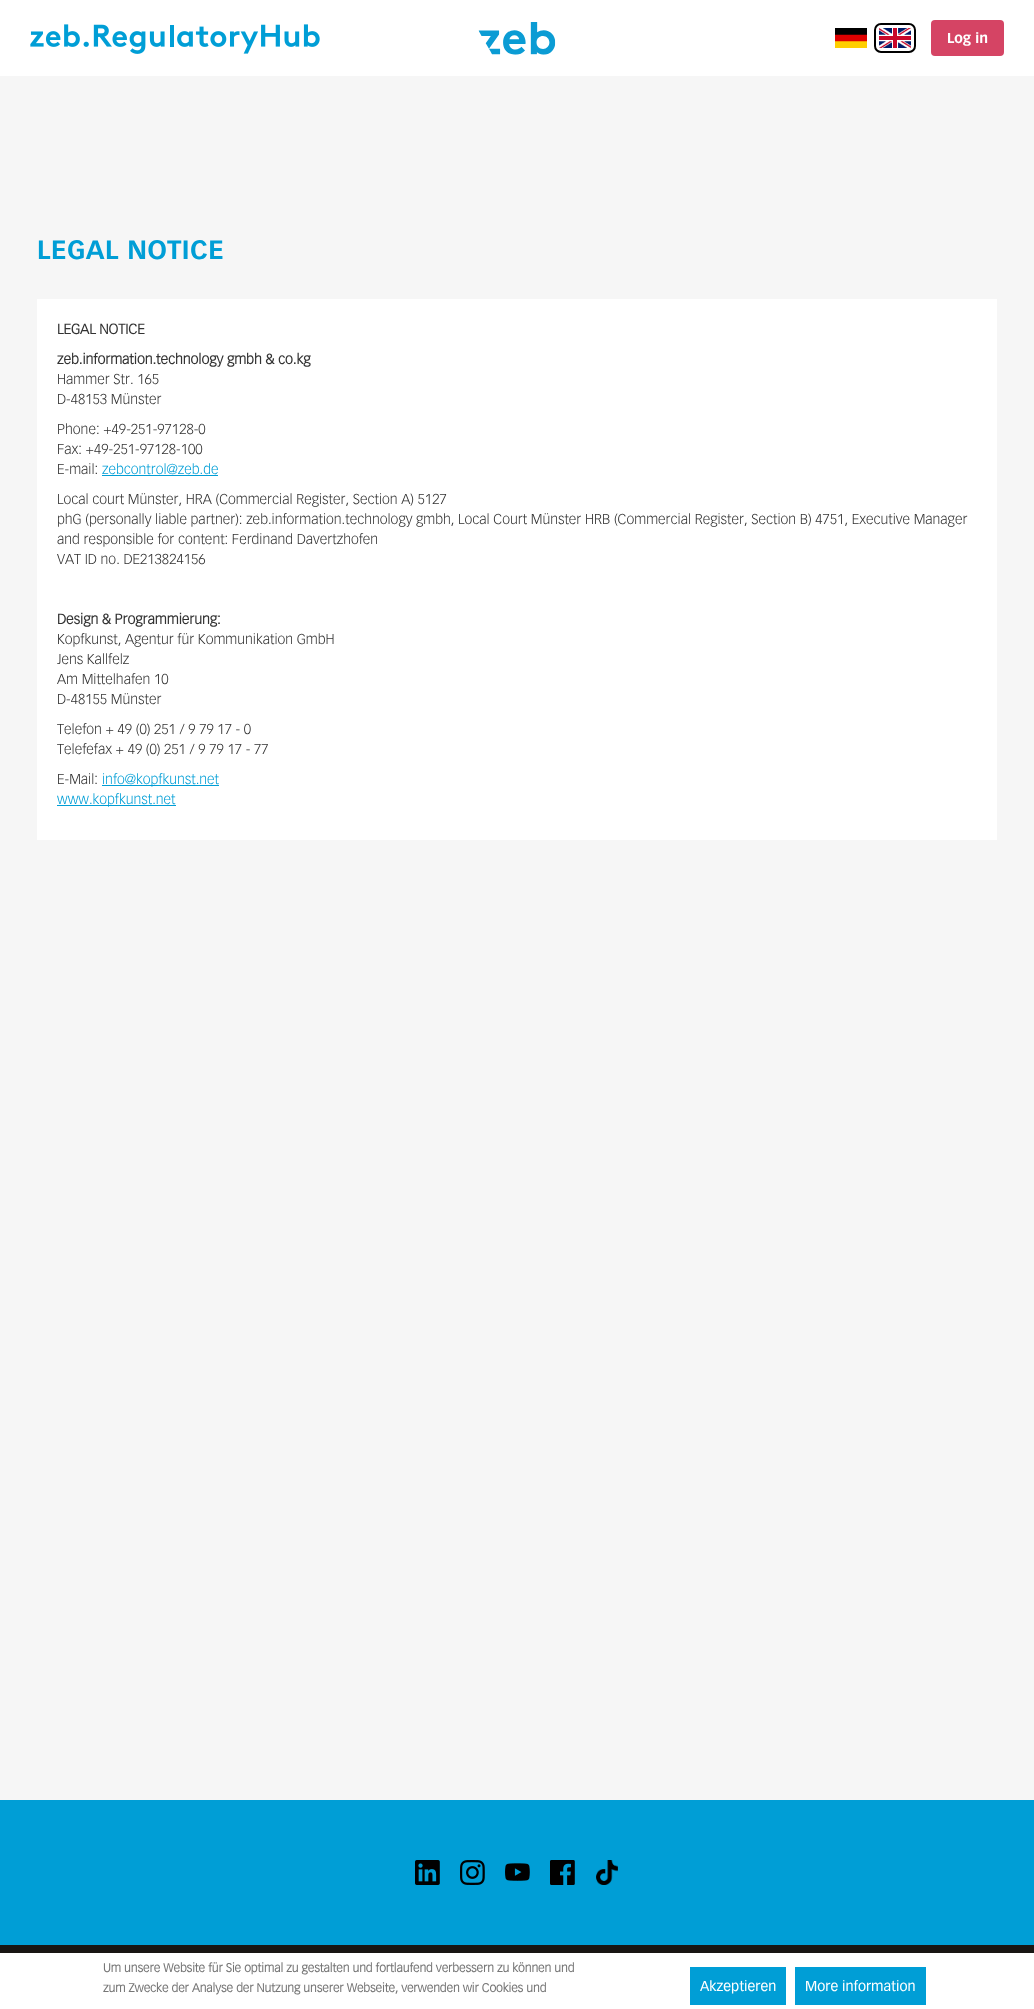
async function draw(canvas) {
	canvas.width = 1034;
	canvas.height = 2009;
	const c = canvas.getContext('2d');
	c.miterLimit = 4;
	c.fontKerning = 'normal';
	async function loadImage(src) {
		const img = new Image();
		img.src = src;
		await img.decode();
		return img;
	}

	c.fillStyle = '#f6f6f6';
	c.fillRect(0, 0, 1034, 2009);
	c.fillStyle = '#fff';
	c.fillRect(0, 0, 1034, 76);
	c.drawImage(await loadImage('img1.png'), 30, 24, 290, 30);
	c.drawImage(await loadImage('img2.png'), 478, 22, 78, 33);
	c.drawImage(await loadImage('img3.png'), 835, 28, 32, 20);
	c.beginPath();
	c.roundRect(875, 24, 40, 28, 6);
	c.strokeStyle = '#000';
	c.lineWidth = 2;
	c.stroke();
	c.drawImage(await loadImage('img4.png'), 879, 28, 32, 20);
	c.fillStyle = '#d54464';
	c.beginPath();
	c.roundRect(931, 20, 73, 36, 4);
	c.fill();
	c.font = 'bold 14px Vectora';
	c.fillStyle = '#fff';
	c.fillText('Log in', 947, 43);
	c.letterSpacing = '0.5px';
	c.font = 'bold 26px Vectora';
	c.fillStyle = '#009ed6';
	c.fillText('LEGAL NOTICE', 37, 259);
	c.fillStyle = '#fff';
	c.fillRect(37, 299, 960, 541);
	c.letterSpacing = '0px';
	c.font = 'bold 14px "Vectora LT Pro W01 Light"';
	c.fillStyle = '#333';
	c.fillText('LEGAL NOTICE', 57, 334);
	c.fillText('zeb.information.technology gmbh & co.kg', 57, 364);
	c.font = '300 14px "Vectora LT Pro W01 Light"';
	for (const [text, x, y] of [
		['Hammer Str. 165', 57, 384],
		['D-48153 Münster', 57, 404],
		['Phone: +49-251-97128-0', 57, 434],
		['Fax: +49-251-97128-100', 57, 454],
		['E-mail:', 57, 474],
	]) {
		c.fillText(text, x, y);
	}
	c.fillStyle = '#009ed6';
	c.fillText('zebcontrol@zeb.de', 102, 474);
	c.fillRect(102, 475, 116, 1);
	c.fillStyle = '#333';
	for (const [text, x, y] of [
		['Local court Münster, HRA (Commercial Register, Section A) 5127', 57, 504],
		['phG (personally liable partner): zeb.information.technology gmbh, Local Court Münster HRB (Commercial Register, Section B) 4751, Executive Manager', 57, 524],
		['and responsible for content: Ferdinand Davertzhofen', 57, 544],
		['VAT ID no. DE213824156', 57, 564],
	]) {
		c.fillText(text, x, y);
	}
	c.font = 'bold 14px "Vectora LT Pro W01 Light"';
	c.fillText('Design & Programmierung:', 57, 624);
	c.font = '300 14px "Vectora LT Pro W01 Light"';
	for (const [text, x, y] of [
		['Kopfkunst, Agentur für Kommunikation GmbH', 57, 644],
		['Jens Kallfelz', 57, 664],
		['Am Mittelhafen 10', 57, 684],
		['D-48155 Münster', 57, 704],
		['Telefon + 49 (0) 251 / 9 79 17 - 0', 57, 734],
		['Telefefax + 49 (0) 251 / 9 79 17 - 77', 57, 754],
		['E-Mail:', 57, 784],
	]) {
		c.fillText(text, x, y);
	}
	c.fillStyle = '#009ed6';
	c.fillRect(102, 785, 117, 1);
	c.fillText('info@kopfkunst.net', 102, 784);
	c.fillRect(57, 805, 119, 1);
	c.fillText('www.kopfkunst.net', 57, 804);
	c.fillRect(0, 1800, 1034, 145);
	c.drawImage(await loadImage('img5.png'), 415, 1860, 25, 25);
	c.drawImage(await loadImage('img6.png'), 460, 1860, 25, 25);
	c.drawImage(await loadImage('img7.png'), 505, 1863, 25, 18);
	c.drawImage(await loadImage('img8.png'), 550, 1860, 25, 25);
	c.drawImage(await loadImage('img9.png'), 596, 1860, 22, 25);
	c.fillStyle = '#181613';
	c.fillRect(0, 1945, 1034, 8);
	c.fillStyle = '#fff';
	c.fillRect(0, 1953, 1034, 56);
	c.font = 'bold 12px "Vectora LT Pro W01 Light"';
	c.fillStyle = '#777';
	c.fillText('Um unsere Website für Sie optimal zu gestalten und fortlaufend verbessern zu können und', 103, 1972);
	c.fillText('zum Zwecke der Analyse der Nutzung unserer Webseite, verwenden wir Cookies und', 103, 1992);
	c.fillStyle = '#009ed6';
	c.fillRect(690, 1967, 96, 38);
	c.font = '14px Vectora';
	c.fillStyle = '#fff';
	c.fillText('Akzeptieren', 700, 1991);
	c.fillStyle = '#009ed6';
	c.fillRect(795, 1967, 131, 38);
	c.fillStyle = '#fff';
	c.fillText('More information', 805, 1991);
}

draw(document.querySelector('canvas'));
